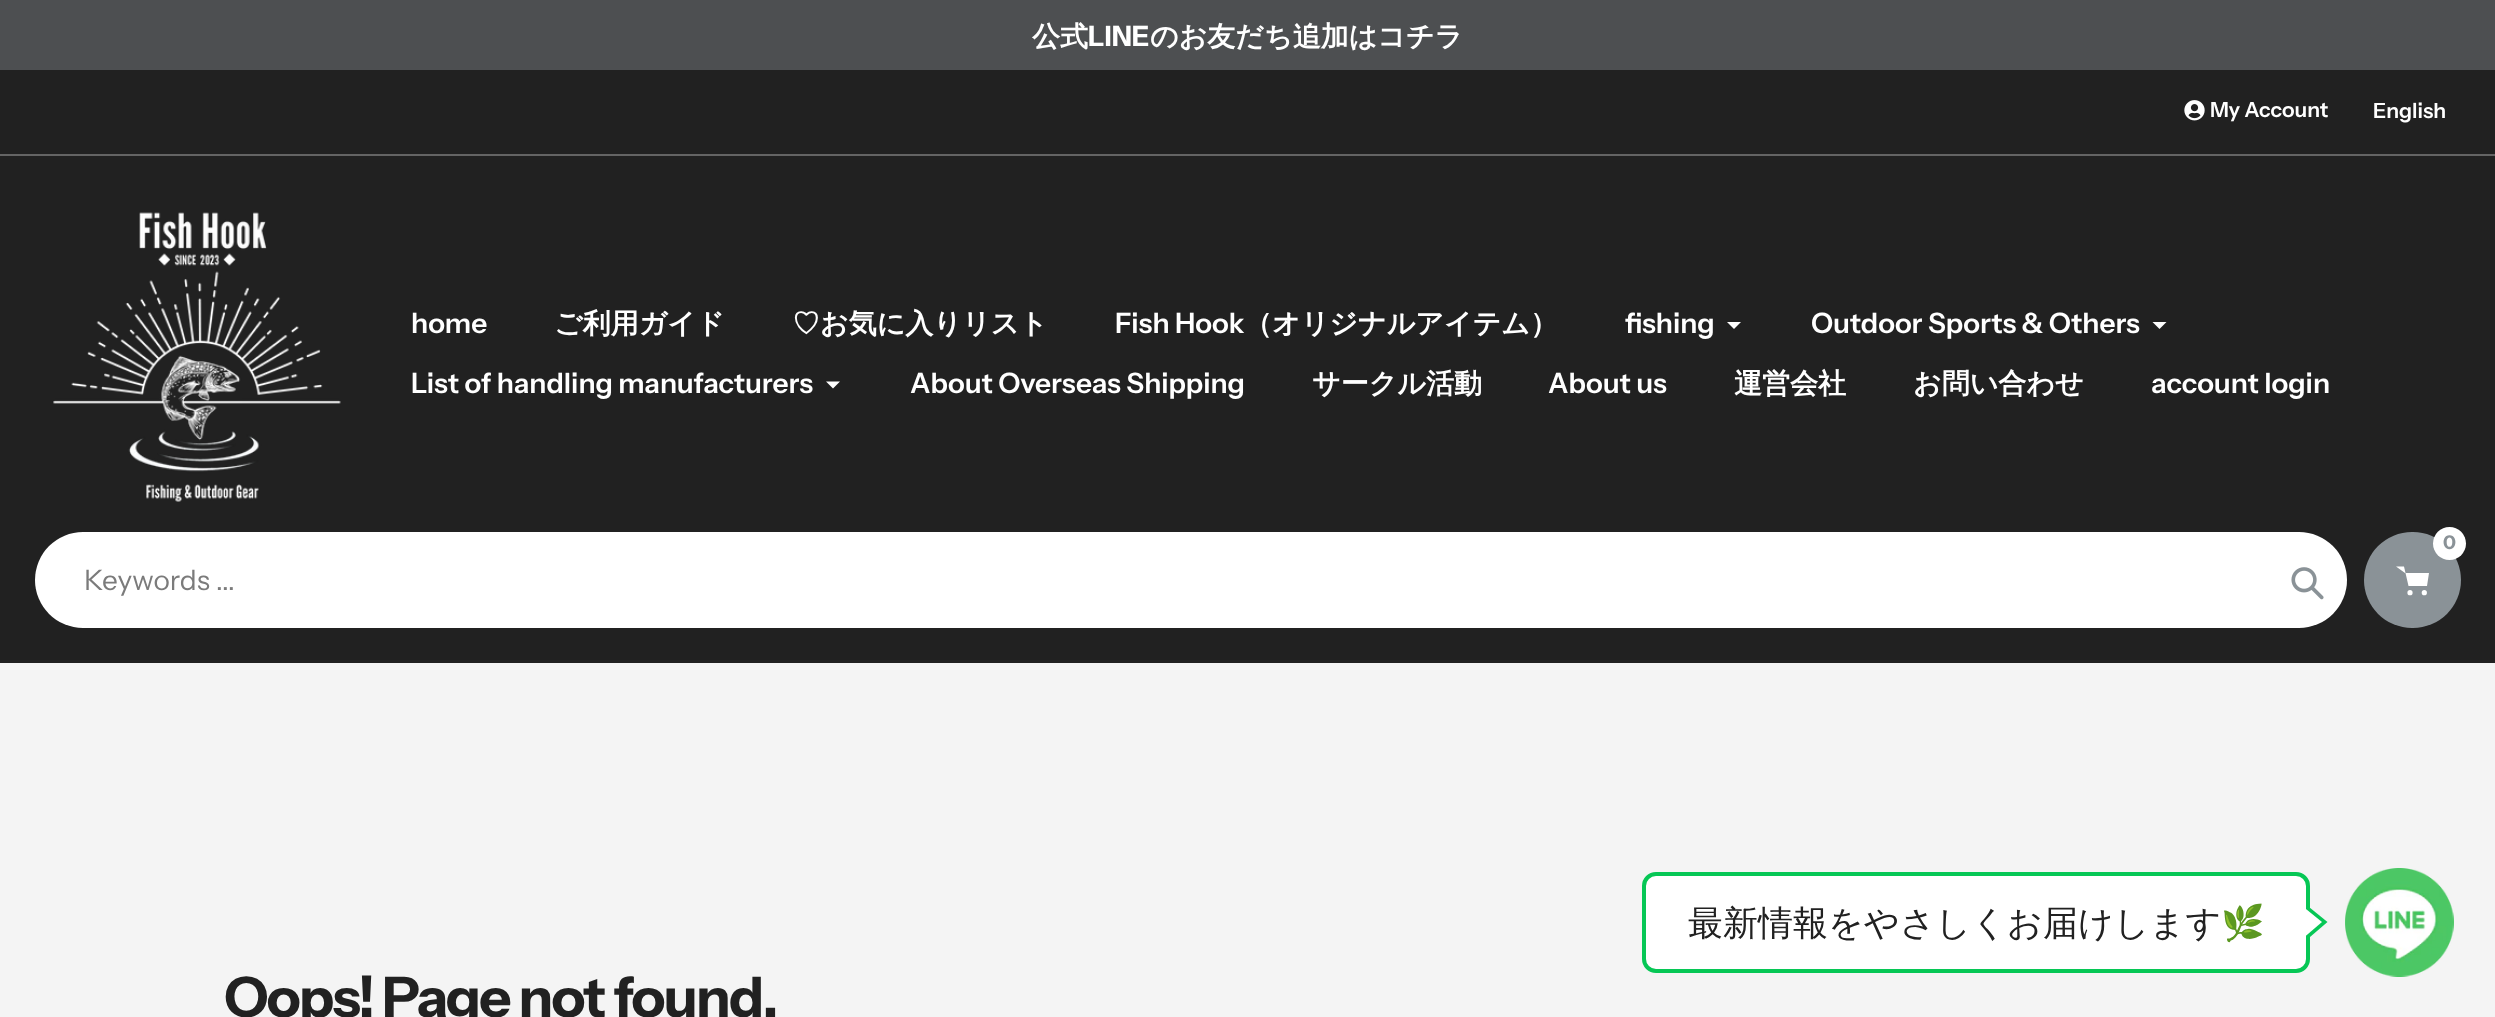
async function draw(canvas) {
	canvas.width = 2495;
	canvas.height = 1017;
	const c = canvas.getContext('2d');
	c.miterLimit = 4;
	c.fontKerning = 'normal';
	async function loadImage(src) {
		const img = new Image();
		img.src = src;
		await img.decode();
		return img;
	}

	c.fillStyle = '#f4f4f4';
	c.fillRect(0, 0, 2495, 1017);
	c.fillStyle = '#4d4f51';
	c.fillRect(0, 0, 2495, 70);
	c.font = 'bold 28px WenQuanYi Zen Hei';
	c.fillStyle = '#fff';
	c.fillText('公式', 1032, 46);
	c.font = 'bold 28px Instrument Sans';
	c.fillText('LINE', 1088, 46);
	c.font = 'bold 28px WenQuanYi Zen Hei';
	c.fillText('のお友だち追加はコチラ', 1150, 46);
	c.fillStyle = '#212121';
	c.fillRect(0, 70, 2495, 593);
	c.fillStyle = '#646464';
	c.fillRect(0, 154, 2495, 2);
	c.drawImage(await loadImage('img1.png'), 2184, 100, 21, 21);
	c.font = '600 21px Instrument Sans';
	c.fillStyle = '#fff';
	c.fillText('My Account', 2210, 117);
	c.fillText('English', 2373, 118);
	c.drawImage(await loadImage('img2.png'), 53, 212, 288, 290);
	c.font = '600 28px Instrument Sans';
	c.fillText('home', 411, 333);
	c.font = 'bold 28px WenQuanYi Zen Hei';
	c.fillText('ご利用ガイド', 554, 333);
	c.fillText('♡お気に入りリスト', 792, 333);
	c.font = '600 28px Instrument Sans';
	c.fillText('Fish Hook', 1115, 333);
	c.font = 'bold 28px WenQuanYi Zen Hei';
	c.fillText('（オリジナルアイテム）', 1244, 333);
	c.font = '600 28px Instrument Sans';
	c.fillText('fishing', 1625, 333);
	c.beginPath();
	c.moveTo(1741, 322);
	c.lineTo(1734, 329);
	c.lineTo(1727, 322);
	c.fill();
	c.fillText('Outdoor Sports & Others', 1811, 333);
	c.beginPath();
	c.moveTo(2166.5, 322);
	c.lineTo(2159.5, 329);
	c.lineTo(2152.5, 322);
	c.fill();
	c.fillText('List of handling manufacturers', 411, 393);
	c.beginPath();
	c.moveTo(840, 381.5);
	c.lineTo(833, 388.5);
	c.lineTo(826, 381.5);
	c.fill();
	c.fillText('About Overseas Shipping', 910, 393);
	c.font = 'bold 28px WenQuanYi Zen Hei';
	c.fillText('サークル活動', 1312, 393);
	c.font = '600 28px Instrument Sans';
	c.fillText('About us', 1548, 393);
	c.font = 'bold 28px WenQuanYi Zen Hei';
	c.fillText('運営会社', 1734, 393);
	c.fillText('お問い合わせ', 1913, 393);
	c.font = '600 28px Instrument Sans';
	c.fillText('account login', 2151, 393);
	c.fillStyle = '#8a9297';
	c.beginPath();
	c.roundRect(2364, 532, 97, 96, 48);
	c.fill();
	c.fillStyle = '#fff';
	c.beginPath();
	c.arc(2449.5, 543.5, 16.5, 0, 2 * Math.PI);
	c.fill();
	c.font = 'bold 19px Instrument Sans';
	c.fillStyle = '#8a9297';
	c.fillText('0', 2443, 549);
	c.fillStyle = '#fff';
	c.beginPath();
	c.arc(2410, 592.7, 2.6, 0, 2 * Math.PI);
	c.fill();
	c.beginPath();
	c.arc(2424.3, 592.7, 2.6, 0, 2 * Math.PI);
	c.fill();
	c.beginPath();
	c.moveTo(2405, 573);
	c.lineTo(2429, 573);
	c.lineTo(2427, 586);
	c.lineTo(2408.5, 586);
	c.lineTo(2404, 566.5);
	c.lineTo(2396, 566.5);
	c.fill('evenodd');
	c.beginPath();
	c.roundRect(35, 532, 2312, 96, 48);
	c.fill();
	c.font = '28px Instrument Sans';
	c.fillStyle = '#7b7b7b';
	c.fillText('Keywords ...', 84, 590);
	c.drawImage(await loadImage('img3.png'), 2291, 567, 33, 33);
	c.fillStyle = '#fff';
	c.beginPath();
	c.roundRect(1644, 874, 664, 97, 12);
	c.fill();
	c.strokeStyle = '#06c755';
	c.lineWidth = 4;
	c.stroke();
	c.font = '500 35px WenQuanYi Zen Hei';
	c.fillStyle = '#212121';
	c.fillText('最新情報をやさしくお届けします', 1688, 935);
	c.font = '35px Noto Color Emoji';
	c.fillText('🌿', 2221, 935);
	c.fillStyle = '#06c755';
	c.beginPath();
	c.moveTo(2306.5, 940);
	c.lineTo(2306.5, 905);
	c.lineTo(2327.5, 922);
	c.closePath();
	c.fill();
	c.fillStyle = '#fff';
	c.beginPath();
	c.moveTo(2301, 940);
	c.lineTo(2301, 905);
	c.lineTo(2322, 922);
	c.closePath();
	c.fill();
	c.drawImage(await loadImage('img4.png'), 2345, 868, 109, 109);
	c.letterSpacing = '-1.75px';
	c.font = 'bold 56px Instrument Sans';
	c.fillStyle = '#212121';
	c.fillText('Oops! Page not found.', 224, 1017);
}

draw(document.querySelector('canvas'));
